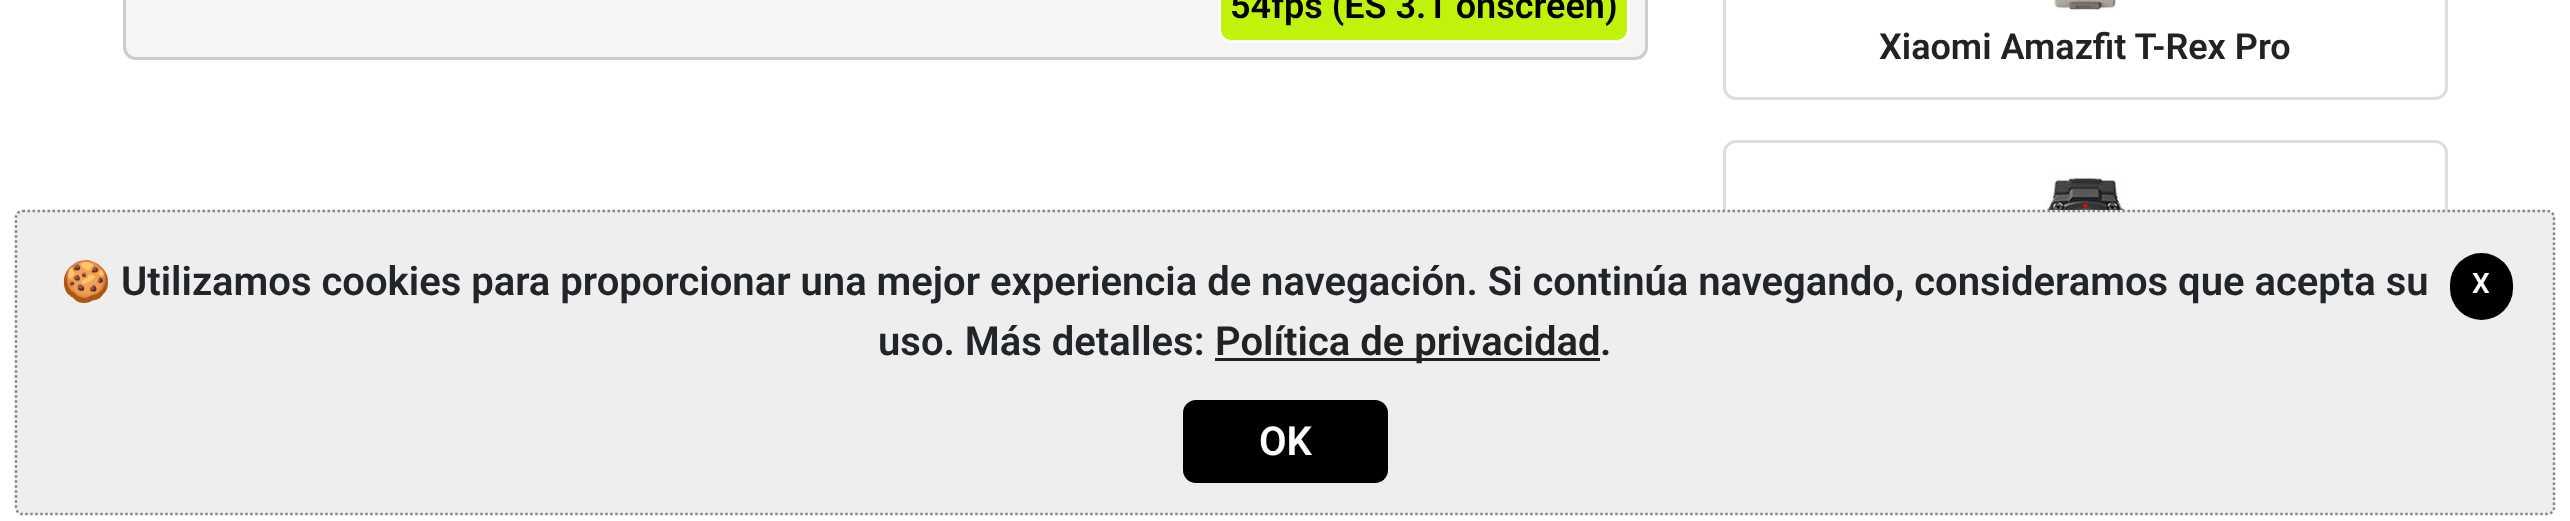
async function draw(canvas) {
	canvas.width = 2570;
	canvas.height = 521;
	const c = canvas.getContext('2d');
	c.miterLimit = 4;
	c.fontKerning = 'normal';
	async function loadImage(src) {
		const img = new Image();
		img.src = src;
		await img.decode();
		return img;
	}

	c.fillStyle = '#fff';
	c.fillRect(0, 0, 2570, 521);
	c.fillStyle = '#f5f5f5';
	c.beginPath();
	c.roundRect(124.5, -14.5, 1522, 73, 11.5);
	c.fill();
	c.strokeStyle = '#ccc';
	c.lineWidth = 3;
	c.stroke();
	c.fillStyle = '#bff30b';
	c.beginPath();
	c.roundRect(1219.5, -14.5, 409, 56, 11.5);
	c.fill();
	c.strokeStyle = '#fff';
	c.stroke();
	c.font = '600 36px Roboto';
	c.fillStyle = '#000';
	c.fillText('54fps (ES 3.1 onscreen)', 1230, 18);
	c.beginPath();
	c.roundRect(1724.5, -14.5, 722, 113, 11.5);
	c.strokeStyle = '#ddd';
	c.stroke();
	c.drawImage(await loadImage('img1.png'), 2053, 0, 63, 12);
	c.fillStyle = '#222';
	c.fillText('Xiaomi Amazfit T-Rex Pro', 1879, 59);
	c.beginPath();
	c.roundRect(1724.5, 141.5, 722, 290, 11.5);
	c.stroke();
	c.drawImage(await loadImage('img2.png'), 2022, 174, 126, 36);
	c.fillStyle = '#eee';
	c.beginPath();
	c.roundRect(15, 210, 2540, 305, 8);
	c.fill();
	c.beginPath();
	c.moveTo(22.5, 211);
	c.lineTo(2547.5, 211);
	c.bezierCurveTo(2551, 211, 2554, 214, 2554, 217.5);
	c.lineTo(2554, 507.5);
	c.bezierCurveTo(2554, 511, 2551, 514, 2547.5, 514);
	c.lineTo(22.5, 514);
	c.bezierCurveTo(19, 514, 16, 511, 16, 507.5);
	c.lineTo(16, 217.5);
	c.bezierCurveTo(16, 214, 19, 211, 22.5, 211);
	c.closePath();
	c.strokeStyle = '#888';
	c.lineWidth = 2.5;
	c.setLineDash([2.5, 2.5]);
	c.stroke();
	c.font = '40px Noto Color Emoji';
	c.fillStyle = '#212529';
	c.fillText('🍪', 61, 295);
	c.font = '600 40px Roboto';
	c.fillText('Utilizamos cookies para proporcionar una mejor experiencia de navegación. Si continúa navegando, consideramos que acepta su', 121, 295);
	c.fillText('uso. Más detalles:', 878, 355);
	c.fillStyle = '#222';
	c.fillRect(1215, 358, 385, 3);
	c.fillText('Política de privacidad', 1215, 355);
	c.fillStyle = '#212529';
	c.fillText('.', 1600, 355);
	c.fillStyle = '#000';
	c.beginPath();
	c.roundRect(2450, 253, 63, 67, 31.5);
	c.fill();
	c.font = '600 28px Roboto';
	c.fillStyle = '#fff';
	c.fillText('X', 2472, 293);
	c.fillStyle = '#000';
	c.beginPath();
	c.roundRect(1183, 400, 205, 83, 13);
	c.fill();
	c.font = '600 40px Roboto';
	c.fillStyle = '#fff';
	c.fillText('OK', 1259, 455);
}

draw(document.querySelector('canvas'));
